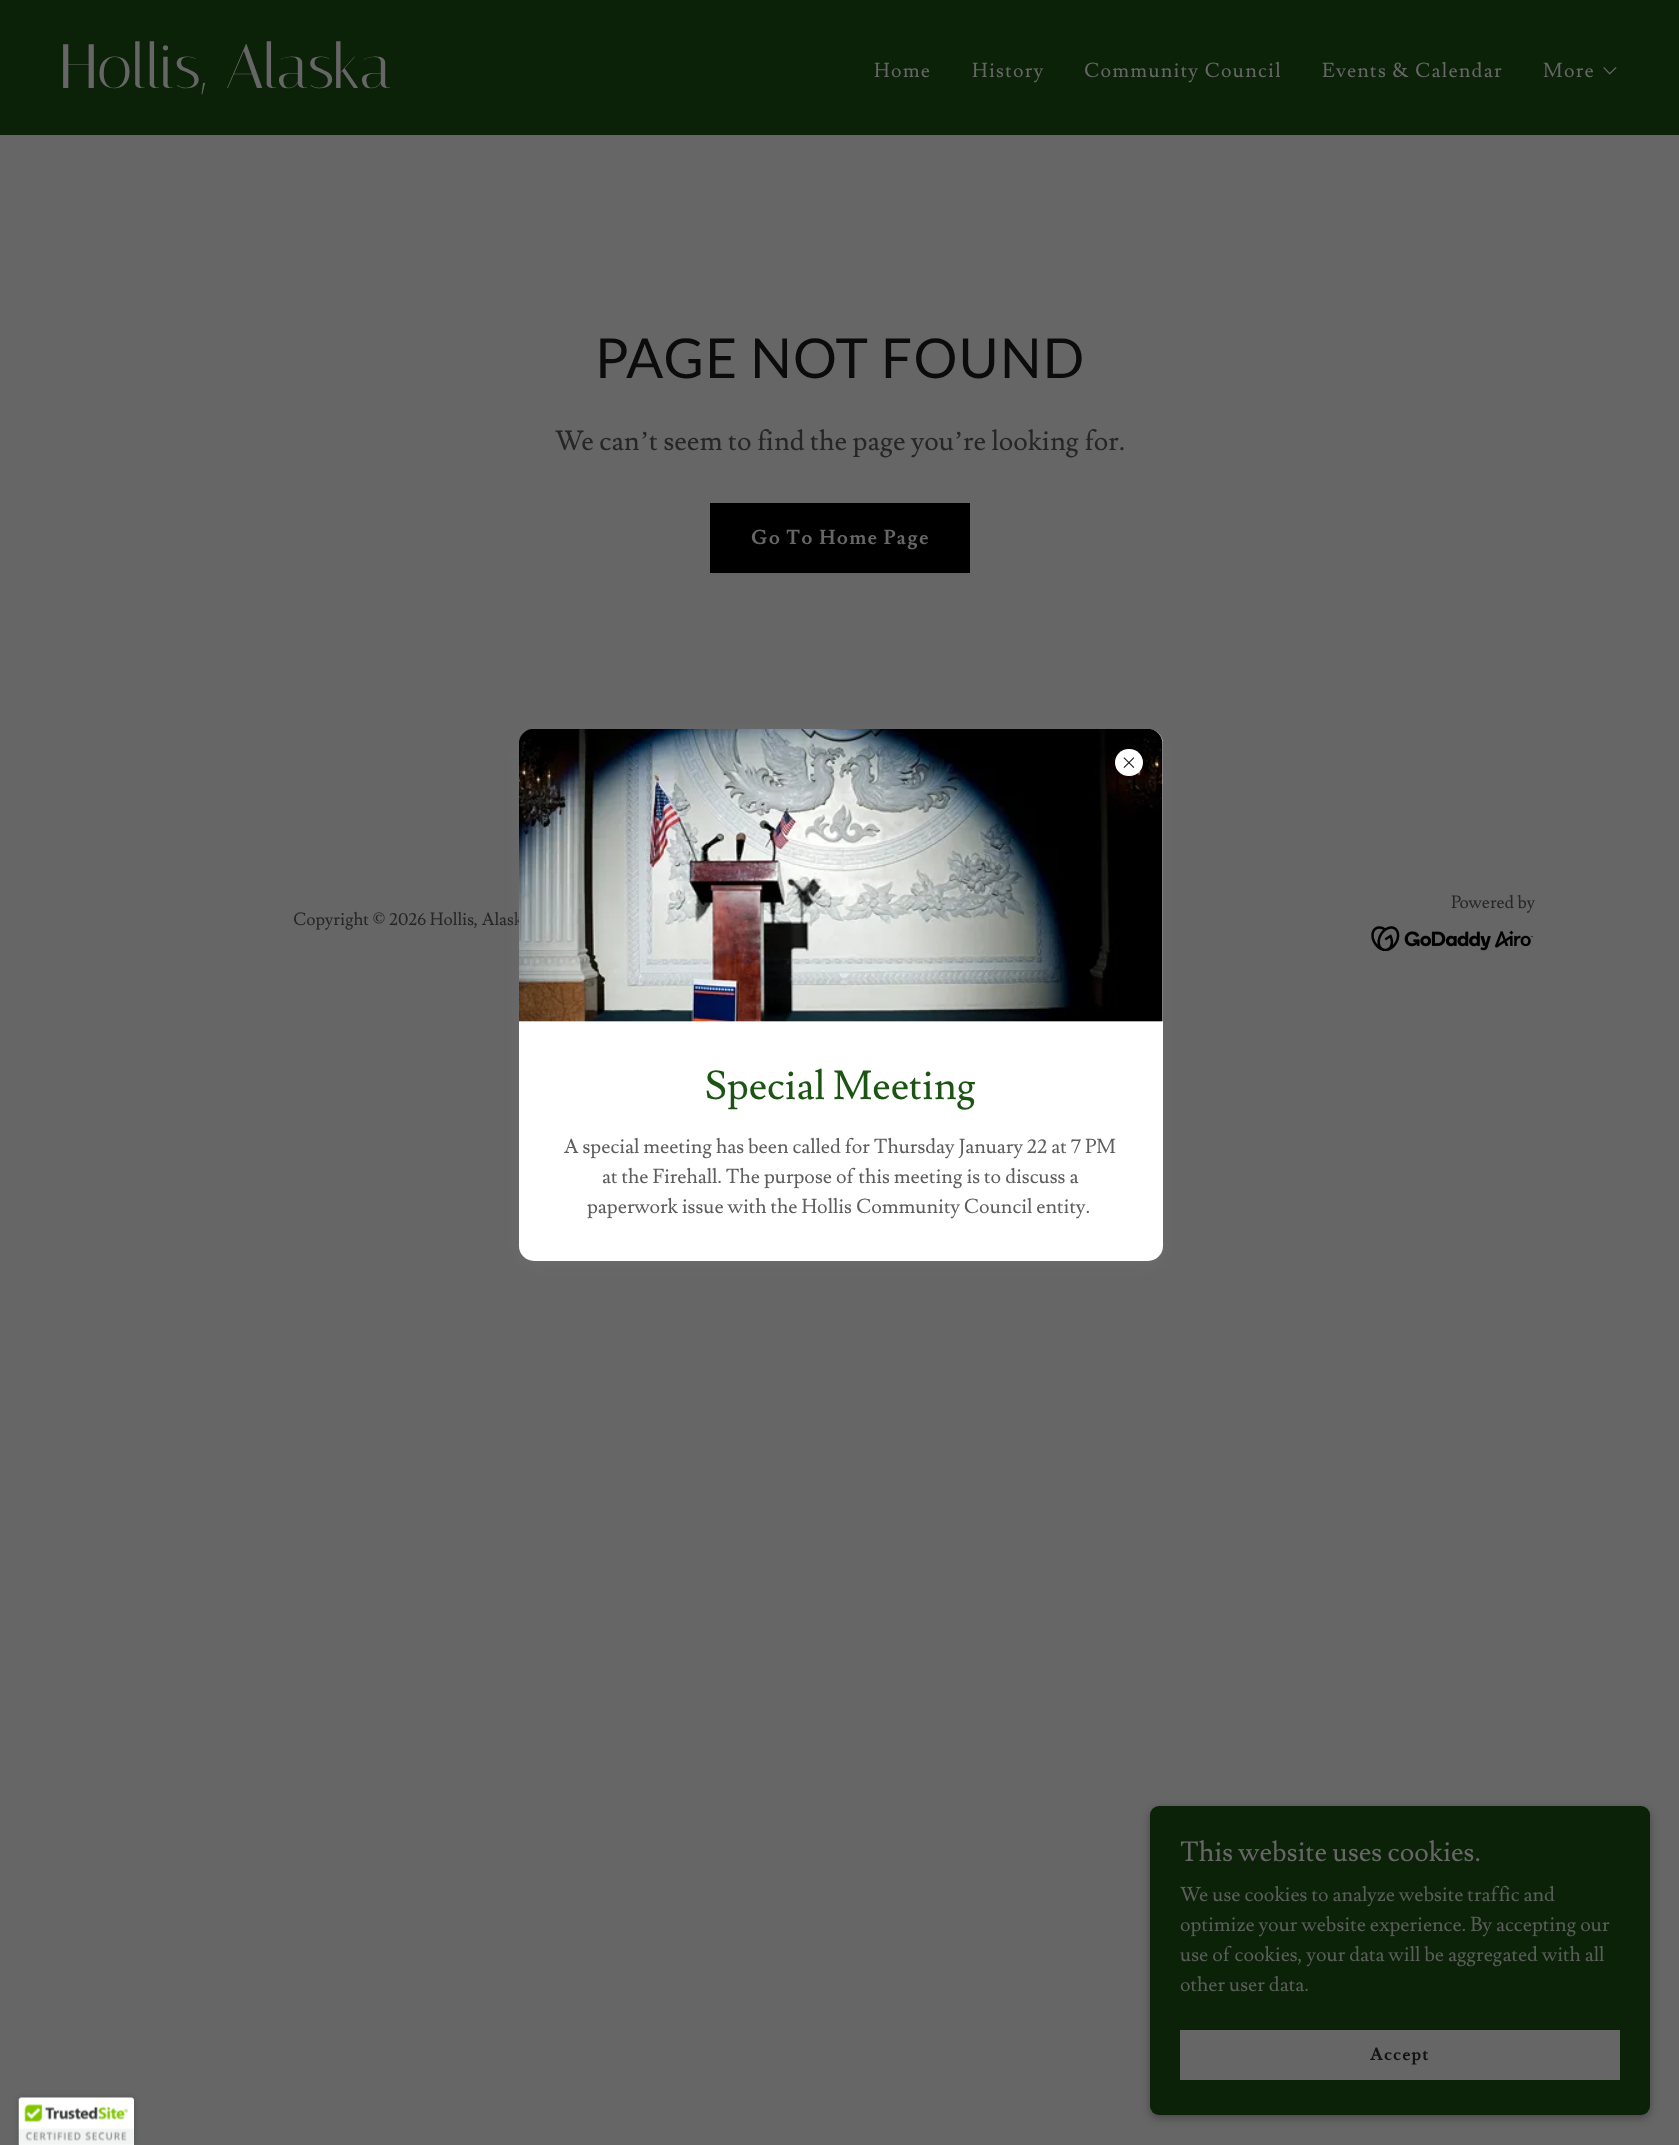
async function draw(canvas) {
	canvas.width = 1679;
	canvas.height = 2145;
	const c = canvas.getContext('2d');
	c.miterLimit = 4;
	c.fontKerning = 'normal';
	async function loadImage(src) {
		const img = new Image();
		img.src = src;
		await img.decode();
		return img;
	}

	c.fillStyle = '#666';
	c.fillRect(0, 0, 1679, 2145);
	c.fillStyle = '#0b2208';
	c.fillRect(0, 0, 1679, 135);
	c.font = '62.5px Italiana';
	c.fillStyle = '#666';
	c.fillText('Hollis, Alaska', 60, 88);
	c.letterSpacing = '1.25px';
	c.font = '20px Lusitana';
	for (const [text, x, y] of [
		['Home', 874, 77],
		['History', 972, 77],
		['Community Council', 1084, 77],
		['Events & Calendar', 1322, 77],
		['More', 1543, 77],
	]) {
		c.fillText(text, x, y);
	}
	c.drawImage(await loadImage('img1.png'), 1603, 67, 14, 8);
	c.font = '55px Lato';
	c.fillStyle = '#0b0b0b';
	c.fillText('PAGE NOT FOUND', 595, 378);
	c.letterSpacing = '0px';
	c.font = '27.5px Lusitana';
	c.fillStyle = '#262626';
	c.fillText('We can', 555, 450);
	c.font = '27.5px Liberation Serif';
	c.fillText('’', 640, 450);
	c.font = '27.5px Lusitana';
	c.fillText('t seem to find the page you', 649, 450);
	c.font = '27.5px Liberation Serif';
	c.fillText('’', 954, 450);
	c.font = '27.5px Lusitana';
	c.fillText('re looking for.', 963, 450);
	c.fillStyle = '#000';
	c.fillRect(710, 503, 260, 70);
	c.letterSpacing = '1.25px';
	c.font = 'bold 20px Lusitana';
	c.fillStyle = '#666';
	c.fillText('Go To Home Page', 751, 544);
	c.letterSpacing = '0px';
	c.font = '17.5px Lusitana';
	c.fillStyle = '#262626';
	c.fillText('Powered by', 1451, 908);
	c.drawImage(await loadImage('img2.png'), 1371, 926, 162, 25);
	c.fillText('Copyright © 2026 Hollis, Alask', 293, 925);
	c.fillStyle = '#75757566';
	c.filter = 'blur(7.5px)';
	c.beginPath();
	c.roundRect(519, 734, 644, 532, 15);
	c.fill();
	c.filter = 'none';
	c.fillStyle = '#fff';
	c.beginPath();
	c.roundRect(519, 729, 644, 532, 15);
	c.fill();
	c.drawImage(await loadImage('img4.png'), 519, 729, 644, 293);
	c.beginPath();
	c.roundRect(1115, 749, 28, 27, 13.5);
	c.fill();
	c.drawImage(await loadImage('img3.png'), 1123, 757, 12, 11);
	c.font = '40px Lusitana';
	c.fillStyle = '#1c5413';
	c.fillText('Special Meeting', 705, 1099);
	c.font = '20px Lusitana';
	c.fillStyle = '#5e5e5e';
	for (const [text, x, y] of [
		['A special meeting has been called for Thursday January 22 at 7 PM', 564, 1153],
		['at the Firehall. The purpose of this meeting is to discuss a', 602, 1183],
		['paperwork issue with the Hollis Community Council entity.', 587, 1213],
	]) {
		c.fillText(text, x, y);
	}
	c.fillStyle = '#0000004d';
	c.filter = 'blur(4px)';
	c.beginPath();
	c.roundRect(1150, 1809, 500, 309, 9);
	c.fill();
	c.filter = 'none';
	c.fillStyle = '#0b2208';
	c.beginPath();
	c.roundRect(1150, 1806, 500, 309, 9);
	c.fill();
	c.font = '27.5px Lusitana';
	c.fillStyle = '#666';
	c.fillText('This website uses cookies.', 1180, 1861);
	c.font = '20px Lusitana';
	c.fillStyle = '#585d58';
	for (const [text, x, y] of [
		['We use cookies to analyze website traffic and', 1180, 1901],
		['optimize your website experience. By accepting our', 1180, 1931],
		['use of cookies, your data will be aggregated with all', 1180, 1961],
		['other user data.', 1180, 1991],
	]) {
		c.fillText(text, x, y);
	}
	c.fillStyle = '#666';
	c.fillRect(1180, 2030, 440, 50);
	c.letterSpacing = '1px';
	c.font = 'bold 17.5px Lusitana';
	c.fillStyle = '#131313';
	c.fillText('Accept', 1370, 2060);
	c.fillStyle = '#00000033';
	c.filter = 'blur(3px)';
	c.beginPath();
	c.roundRect(19, 2098, 115, 47, 2.5);
	c.fill();
	c.filter = 'none';
	c.fillStyle = '#fff';
	c.beginPath();
	c.roundRect(19, 2098, 115, 47, [2.5, 2.5, 0, 0]);
	c.fill();
	c.drawImage(await loadImage('img5.png'), 18, 2097, 116, 48);
}

draw(document.querySelector('canvas'));
